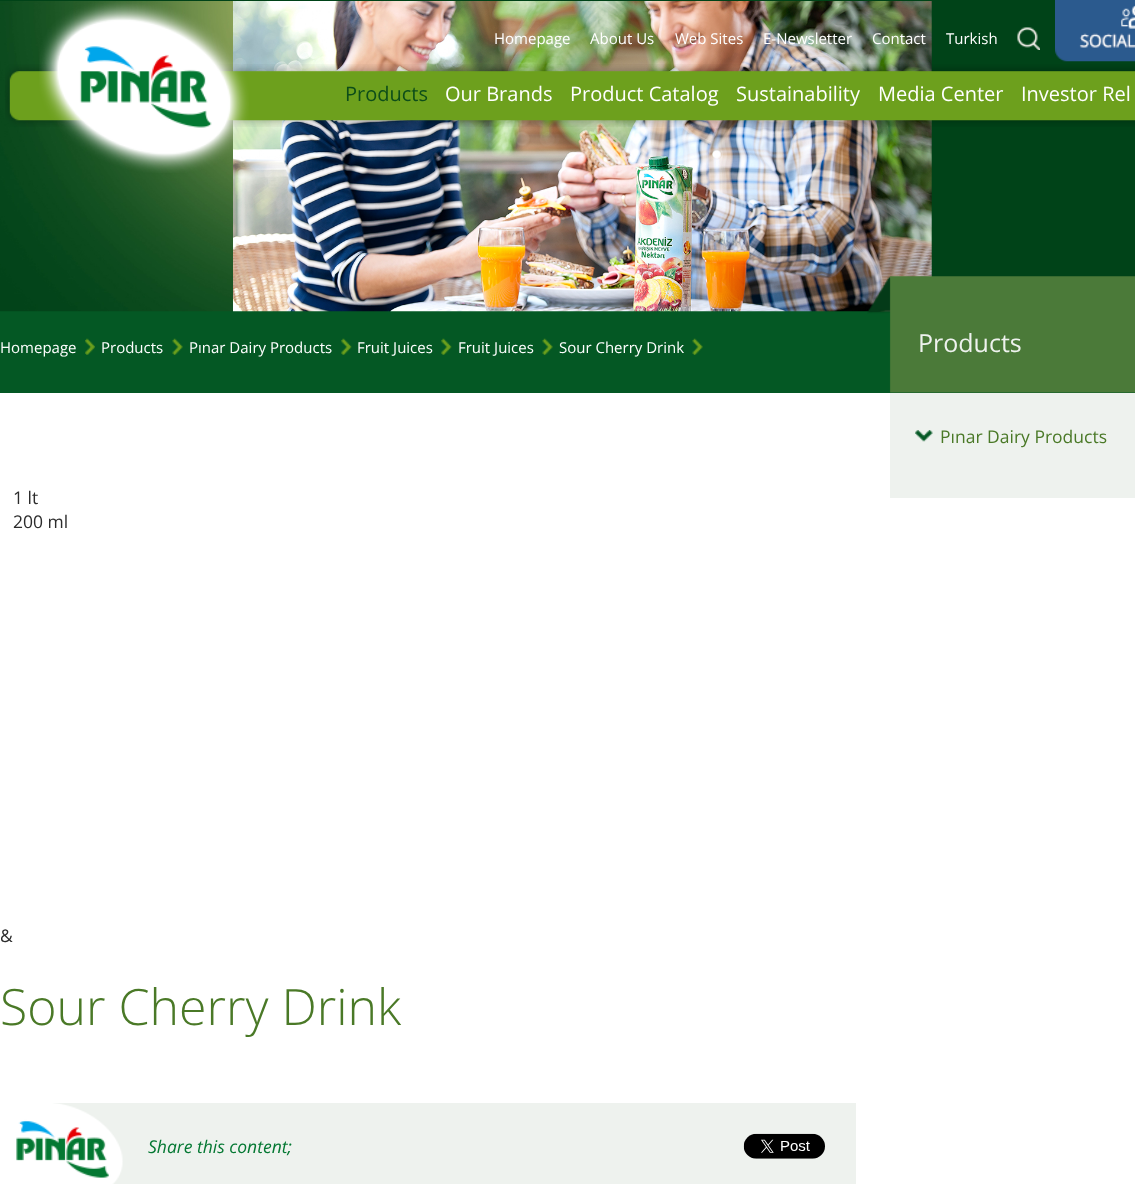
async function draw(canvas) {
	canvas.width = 1135;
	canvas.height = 1202;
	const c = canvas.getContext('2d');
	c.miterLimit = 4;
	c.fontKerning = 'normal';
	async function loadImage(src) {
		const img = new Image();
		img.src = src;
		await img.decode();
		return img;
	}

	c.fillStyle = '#fff';
	c.fillRect(0, 0, 1135, 1202);
	c.fillStyle = '#045824';
	c.fillRect(0, 311, 1135, 82);
	c.drawImage(await loadImage('img1.png'), 0, 0, 1135, 312);
	c.font = '15px Open Sans';
	c.fillStyle = '#fff';
	for (const [text, x, y] of [
		['Homepage', 494, 44],
		['About Us', 590, 44],
		['Web Sites', 675, 44],
		['E-Newsletter', 763, 44],
		['Contact', 872, 44],
		['Turkish', 946, 44],
	]) {
		c.fillText(text, x, y);
	}
	c.drawImage(await loadImage('img2.png'), 1017, 27, 23, 23);
	c.drawImage(await loadImage('img3.png'), 1055, 0, 80, 62);
	c.drawImage(await loadImage('img5.png'), 5, 64, 1130, 63);
	c.drawImage(await loadImage('img4.png'), 39, 1, 210, 172);
	c.font = '20px Open Sans';
	c.fillStyle = '#0d4d19';
	c.fillText('Products', 345, 101);
	c.fillStyle = '#fff';
	for (const [text, x, y] of [
		['Our Brands', 445, 101],
		['Product Catalog', 570, 101],
		['Sustainability', 736, 101],
		['Media Center', 878, 101],
		['Investor Rel', 1021, 101],
	]) {
		c.fillText(text, x, y);
	}
	c.drawImage(await loadImage('img6.png'), 867, 276, 268, 117);
	c.font = '25px Open Sans';
	c.fillStyle = '#eef2ee';
	c.fillText('Products', 918, 352);
	c.fillRect(890, 393, 245, 105);
	c.drawImage(await loadImage('img7.png'), 915, 430, 18, 12);
	c.font = '17.5px Open Sans';
	c.fillStyle = '#4a7927';
	c.fillText('Pınar Dairy Products', 940, 443);
	c.fillStyle = '#2c2c2c';
	for (const [text, x, y] of [
		['1 lt', 13, 504],
		['200 ml', 13, 528],
		['&', 0, 942],
	]) {
		c.fillText(text, x, y);
	}
	c.font = '300 50px Open Sans';
	c.fillStyle = '#4a7927';
	c.fillText('Sour Cherry Drink', 0, 1025);
	c.fillStyle = '#eef2ee';
	c.fillRect(52, 1103, 804, 81);
	c.drawImage(await loadImage('img8.png'), 0, 1103, 123, 81);
	c.font = 'italic 17.5px Open Sans';
	c.fillStyle = '#047832';
	c.fillText('Share this content;', 148, 1153);
	c.drawImage(await loadImage('img9.png'), 743, 1133, 82, 26);
	c.drawImage(await loadImage('img10.png'), 85, 338, 10, 17);
	c.font = '15px Open Sans';
	c.fillStyle = '#fff';
	c.fillText('Homepage', 0, 353);
	c.drawImage(await loadImage('img11.png'), 172, 338, 11, 17);
	c.fillText('Products', 101, 353);
	c.drawImage(await loadImage('img12.png'), 341, 338, 11, 17);
	c.fillText('Pınar Dairy Products', 189, 353);
	c.drawImage(await loadImage('img12.png'), 441, 338, 11, 17);
	c.fillText('Fruit Juices', 357, 353);
	c.drawImage(await loadImage('img13.png'), 542, 338, 11, 17);
	c.fillText('Fruit Juices', 458, 353);
	c.drawImage(await loadImage('img11.png'), 692, 338, 11, 17);
	c.fillText('Sour Cherry Drink', 559, 353);
}

draw(document.querySelector('canvas'));
